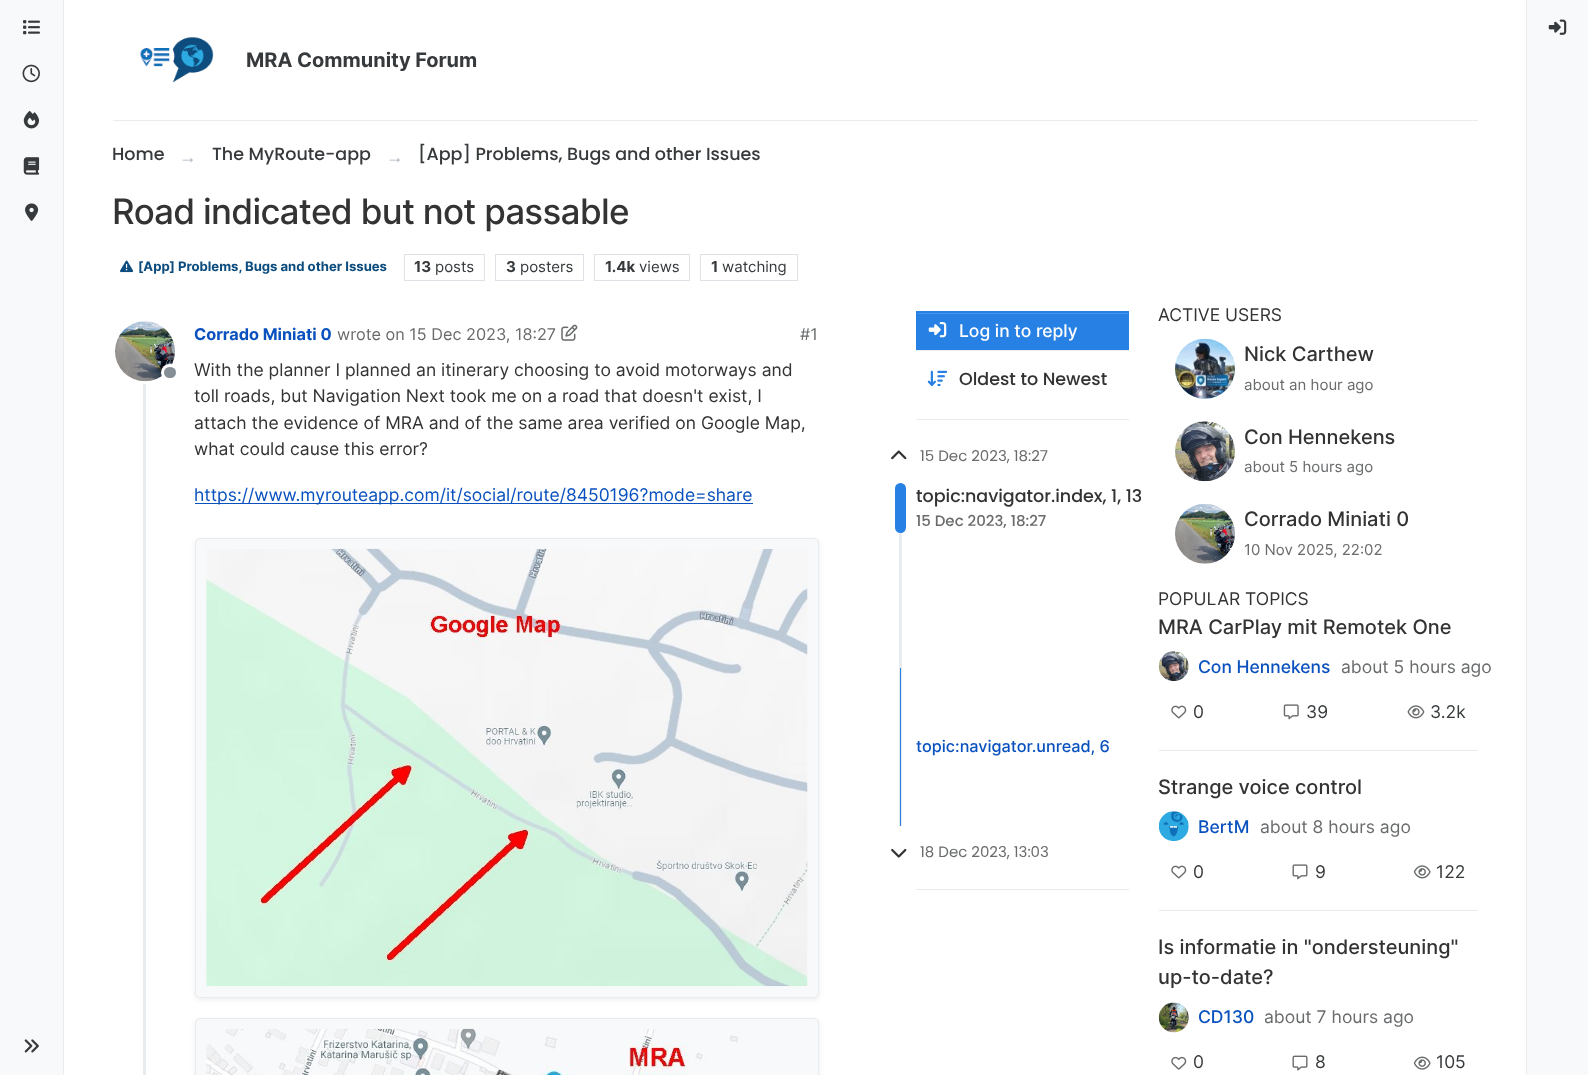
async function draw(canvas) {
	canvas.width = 1588;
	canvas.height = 1075;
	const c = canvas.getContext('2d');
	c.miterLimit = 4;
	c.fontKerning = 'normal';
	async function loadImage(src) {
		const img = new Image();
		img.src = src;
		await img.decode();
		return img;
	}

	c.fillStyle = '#fff';
	c.fillRect(0, 0, 1588, 1075);
	c.fillStyle = '#f8f9fa';
	c.fillRect(0, 0, 63, 1075);
	c.fillStyle = '#e9ecef';
	c.fillRect(63, 0, 1, 1075);
	c.drawImage(await loadImage('img1.png'), 23, 20, 17, 15);
	c.drawImage(await loadImage('img2.png'), 22, 64, 18, 19);
	c.drawImage(await loadImage('img3.png'), 23, 111, 17, 18);
	c.drawImage(await loadImage('img4.png'), 23, 157, 17, 18);
	c.drawImage(await loadImage('img5.png'), 25, 203, 14, 18);
	c.drawImage(await loadImage('img6.png'), 24, 1039, 15, 14);
	c.fillRect(113, 120, 1365, 1);
	c.drawImage(await loadImage('img7.png'), 140, 37, 74, 46);
	c.font = 'bold 20px Inter';
	c.fillStyle = '#373a3c';
	c.fillText('MRA Community Forum', 246, 67);
	c.font = '500 17.5px Poppins';
	c.fillText('Home', 112, 160);
	c.font = '17.5px Liberation Sans';
	c.fillStyle = '#adb5bd';
	c.fillText('→', 179, 163);
	c.font = '500 17.5px Poppins';
	c.fillStyle = '#373a3c';
	c.fillText('The MyRoute-app', 212, 160);
	c.font = '17.5px Liberation Sans';
	c.fillStyle = '#adb5bd';
	c.fillText('→', 386, 163);
	c.font = '500 17.5px Poppins';
	c.fillStyle = '#373a3c';
	c.fillText('[App] Problems, Bugs and other Issues', 418, 160);
	c.letterSpacing = '-0.7px';
	c.font = '500 35px Inter';
	c.fillStyle = '#333';
	c.fillText('Road indicated but not passable', 112, 224);
	c.drawImage(await loadImage('img8.png'), 120, 260, 14, 13);
	c.letterSpacing = '0px';
	c.font = 'bold 13.1px Inter';
	c.fillStyle = '#0b4b7d';
	c.fillText('[App] Problems, Bugs and other Issues', 138, 271);
	c.strokeStyle = '#dee2e6';
	c.strokeRect(404.5, 254.5, 80, 26);
	c.font = 'bold 15px Inter';
	c.fillStyle = '#373a3c';
	c.fillText('13', 414, 272);
	c.font = '15px Inter';
	c.fillText('posts', 435, 272);
	c.strokeRect(495.5, 254.5, 88, 26);
	c.font = 'bold 15px Inter';
	c.fillText('3', 506, 272);
	c.font = '15px Inter';
	c.fillText('posters', 520, 272);
	c.strokeRect(594.5, 254.5, 95, 26);
	c.font = 'bold 15px Inter';
	c.fillText('1.4k', 605, 272);
	c.font = '15px Inter';
	c.fillText('views', 639, 272);
	c.strokeRect(700.5, 254.5, 97, 26);
	c.font = 'bold 15px Inter';
	c.fillText('1', 711, 272);
	c.font = '15px Inter';
	c.fillText('watching', 722, 272);
	c.fillStyle = '#e9ecef';
	c.fillRect(143, 383, 3, 692);
	c.beginPath();
	c.arc(145.5, 351.5, 31, 0, 2 * Math.PI);
	c.strokeStyle = '#fff';
	c.lineWidth = 3;
	c.stroke();
	c.drawImage(await loadImage('img9.png'), 115, 321, 60, 61);
	c.fillStyle = '#868e96';
	c.beginPath();
	c.roundRect(162.5, 365.5, 15, 14, 7);
	c.fill();
	c.stroke();
	c.font = 'bold 16.25px Inter';
	c.fillStyle = '#0951be';
	c.fillText('Corrado Miniati 0', 194, 340);
	c.font = '16.25px Inter';
	c.fillStyle = '#696b6d';
	c.fillText('wrote on 15 Dec 2023, 18:27', 337, 340);
	c.drawImage(await loadImage('img10.png'), 561, 324, 17, 17);
	c.fillText('#1', 800, 340);
	c.font = '17.5px Inter';
	c.fillStyle = '#333';
	for (const [text, x, y] of [
		['With the planner I planned an itinerary choosing to avoid motorways and', 194, 376],
		['toll roads, but Navigation Next took me on a road that doesn\'t exist, I', 194, 402],
		['attach the evidence of MRA and of the same area verified on Google Map,', 194, 429],
		['what could cause this error?', 194, 455],
	]) {
		c.fillText(text, x, y);
	}
	c.fillStyle = '#0951be';
	c.fillRect(195, 503, 558, 1);
	c.fillText('https://www.myrouteapp.com/it/social/route/8450196?mode=share', 194, 501);
	c.fillStyle = '#00000012';
	c.filter = 'blur(2.5px)';
	c.beginPath();
	c.roundRect(195, 540, 624, 460, 5);
	c.fill();
	c.filter = 'none';
	c.fillStyle = '#f8f9fa';
	c.beginPath();
	c.roundRect(195.5, 538.5, 623, 459, 4.5);
	c.fill();
	c.strokeStyle = '#e9ecef';
	c.lineWidth = 1;
	c.stroke();
	c.drawImage(await loadImage('img11.png'), 206, 548, 602, 439);
	c.fillStyle = '#00000012';
	c.filter = 'blur(2.5px)';
	c.beginPath();
	c.roundRect(195, 1020, 624, 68, 5);
	c.fill();
	c.filter = 'none';
	c.fillStyle = '#f8f9fa';
	c.beginPath();
	c.roundRect(195.5, 1018.5, 623, 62, 4.5);
	c.fill();
	c.stroke();
	c.drawImage(await loadImage('img12.png'), 206, 1028, 532, 47);
	c.fillStyle = '#00000012';
	c.filter = 'blur(0.5px)';
	c.beginPath();
	c.rect(916, 313, 213, 38);
	c.fill();
	c.filter = 'none';
	c.fillStyle = '#2780e3';
	c.fillRect(916, 311, 213, 39);
	c.fillStyle = '#4793e7';
	c.fillRect(918, 313, 210, 1);
	c.drawImage(await loadImage('img13.png'), 928, 322, 19, 16);
	c.font = '500 17.5px Inter';
	c.fillStyle = '#fff';
	c.fillText('Log in to reply', 959, 337);
	c.drawImage(await loadImage('img14.png'), 927, 370, 21, 17);
	c.font = '500 17.5px Poppins';
	c.fillStyle = '#333';
	c.fillText('Oldest to Newest', 959, 385);
	c.fillStyle = '#e9ecef';
	c.fillRect(916, 419, 213, 1);
	c.drawImage(await loadImage('img15.png'), 891, 450, 16, 10);
	c.font = '15px Poppins';
	c.fillStyle = '#696b6d';
	c.fillText('15 Dec 2023, 18:27', 920, 461);
	c.fillStyle = '#e9ecef';
	c.fillRect(899, 483, 3, 343);
	c.fillStyle = '#2780e3';
	c.beginPath();
	c.roundRect(895, 483, 11, 50, 5.5);
	c.fill();
	c.font = '500 17.5px Poppins';
	c.fillStyle = '#333';
	c.fillText('topic:navigator.index, 1, 13', 916, 502);
	c.font = '500 15px Poppins';
	c.fillStyle = '#696b6d';
	c.fillText('15 Dec 2023, 18:27', 916, 526);
	c.fillStyle = '#2780e3';
	c.fillRect(900, 668, 1, 158);
	c.font = '500 16.25px Inter';
	c.fillStyle = '#0951be';
	c.fillText('topic:navigator.unread, 6', 916, 752);
	c.drawImage(await loadImage('img16.png'), 891, 848, 16, 10);
	c.font = '15px Poppins';
	c.fillStyle = '#696b6d';
	c.fillText('18 Dec 2023, 13:03', 920, 857);
	c.fillStyle = '#e9ecef';
	c.fillRect(916, 889, 213, 1);
	c.font = '17.5px Inter';
	c.fillStyle = '#333';
	c.fillText('ACTIVE USERS', 1158, 321);
	c.drawImage(await loadImage('img17.png'), 1175, 338, 60, 61);
	c.font = '500 20px Inter';
	c.fillText('Nick Carthew', 1244, 361);
	c.font = '15px Inter';
	c.fillStyle = '#696b6d';
	c.fillText('about an hour ago', 1244, 390);
	c.drawImage(await loadImage('img18.png'), 1175, 421, 60, 61);
	c.font = '500 20px Inter';
	c.fillStyle = '#333';
	c.fillText('Con Hennekens', 1244, 444);
	c.font = '15px Inter';
	c.fillStyle = '#696b6d';
	c.fillText('about 5 hours ago', 1244, 472);
	c.drawImage(await loadImage('img19.png'), 1175, 504, 60, 60);
	c.font = '500 20px Inter';
	c.fillStyle = '#333';
	c.fillText('Corrado Miniati 0', 1244, 526);
	c.font = '15px Inter';
	c.fillStyle = '#696b6d';
	c.fillText('10 Nov 2025, 22:02', 1244, 555);
	c.font = '17.5px Inter';
	c.fillStyle = '#333';
	c.fillText('POPULAR TOPICS', 1158, 605);
	c.font = '500 20px Inter';
	c.fillText('MRA CarPlay mit Remotek One', 1158, 634);
	c.drawImage(await loadImage('img20.png'), 1158, 651, 31, 31);
	c.font = '500 17.5px Inter';
	c.fillStyle = '#0951be';
	c.fillText('Con Hennekens', 1198, 673);
	c.font = '17.5px Inter';
	c.fillStyle = '#696b6d';
	c.fillText('about 5 hours ago', 1341, 673);
	c.drawImage(await loadImage('img21.png'), 1171, 705, 16, 14);
	c.fillStyle = '#373a3c';
	c.fillText('0', 1193, 718);
	c.drawImage(await loadImage('img22.png'), 1283, 704, 16, 16);
	c.fillText('39', 1306, 718);
	c.drawImage(await loadImage('img23.png'), 1407, 705, 18, 14);
	c.fillText('3.2k', 1430, 718);
	c.fillStyle = '#e9ecef';
	c.fillRect(1159, 750, 319, 1);
	c.font = '500 20px Inter';
	c.fillStyle = '#333';
	c.fillText('Strange voice control', 1158, 794);
	c.drawImage(await loadImage('img24.png'), 1158, 811, 31, 31);
	c.font = '500 17.5px Inter';
	c.fillStyle = '#0951be';
	c.fillText('BertM', 1198, 833);
	c.font = '17.5px Inter';
	c.fillStyle = '#696b6d';
	c.fillText('about 8 hours ago', 1260, 833);
	c.drawImage(await loadImage('img21.png'), 1171, 865, 16, 14);
	c.fillStyle = '#373a3c';
	c.fillText('0', 1193, 878);
	c.drawImage(await loadImage('img25.png'), 1292, 864, 16, 16);
	c.fillText('9', 1315, 878);
	c.drawImage(await loadImage('img26.png'), 1413, 865, 18, 14);
	c.fillText('122', 1436, 878);
	c.fillStyle = '#e9ecef';
	c.fillRect(1159, 910, 319, 1);
	c.font = '500 20px Inter';
	c.fillStyle = '#333';
	c.fillText('Is informatie in "ondersteuning"', 1158, 954);
	c.fillText('up-to-date?', 1158, 984);
	c.drawImage(await loadImage('img27.png'), 1158, 1002, 31, 31);
	c.font = '500 17.5px Inter';
	c.fillStyle = '#0951be';
	c.fillText('CD130', 1198, 1023);
	c.font = '17.5px Inter';
	c.fillStyle = '#696b6d';
	c.fillText('about 7 hours ago', 1264, 1023);
	c.drawImage(await loadImage('img28.png'), 1171, 1056, 16, 14);
	c.fillStyle = '#373a3c';
	c.fillText('0', 1193, 1068);
	c.drawImage(await loadImage('img29.png'), 1292, 1055, 16, 16);
	c.fillText('8', 1315, 1068);
	c.drawImage(await loadImage('img30.png'), 1413, 1056, 18, 14);
	c.fillText('105', 1436, 1068);
	c.fillStyle = '#f8f9fa';
	c.fillRect(1527, 0, 61, 1075);
	c.fillStyle = '#e9ecef';
	c.fillRect(1526, 0, 1, 1075);
	c.drawImage(await loadImage('img31.png'), 1548, 19, 19, 16);
}

draw(document.querySelector('canvas'));
